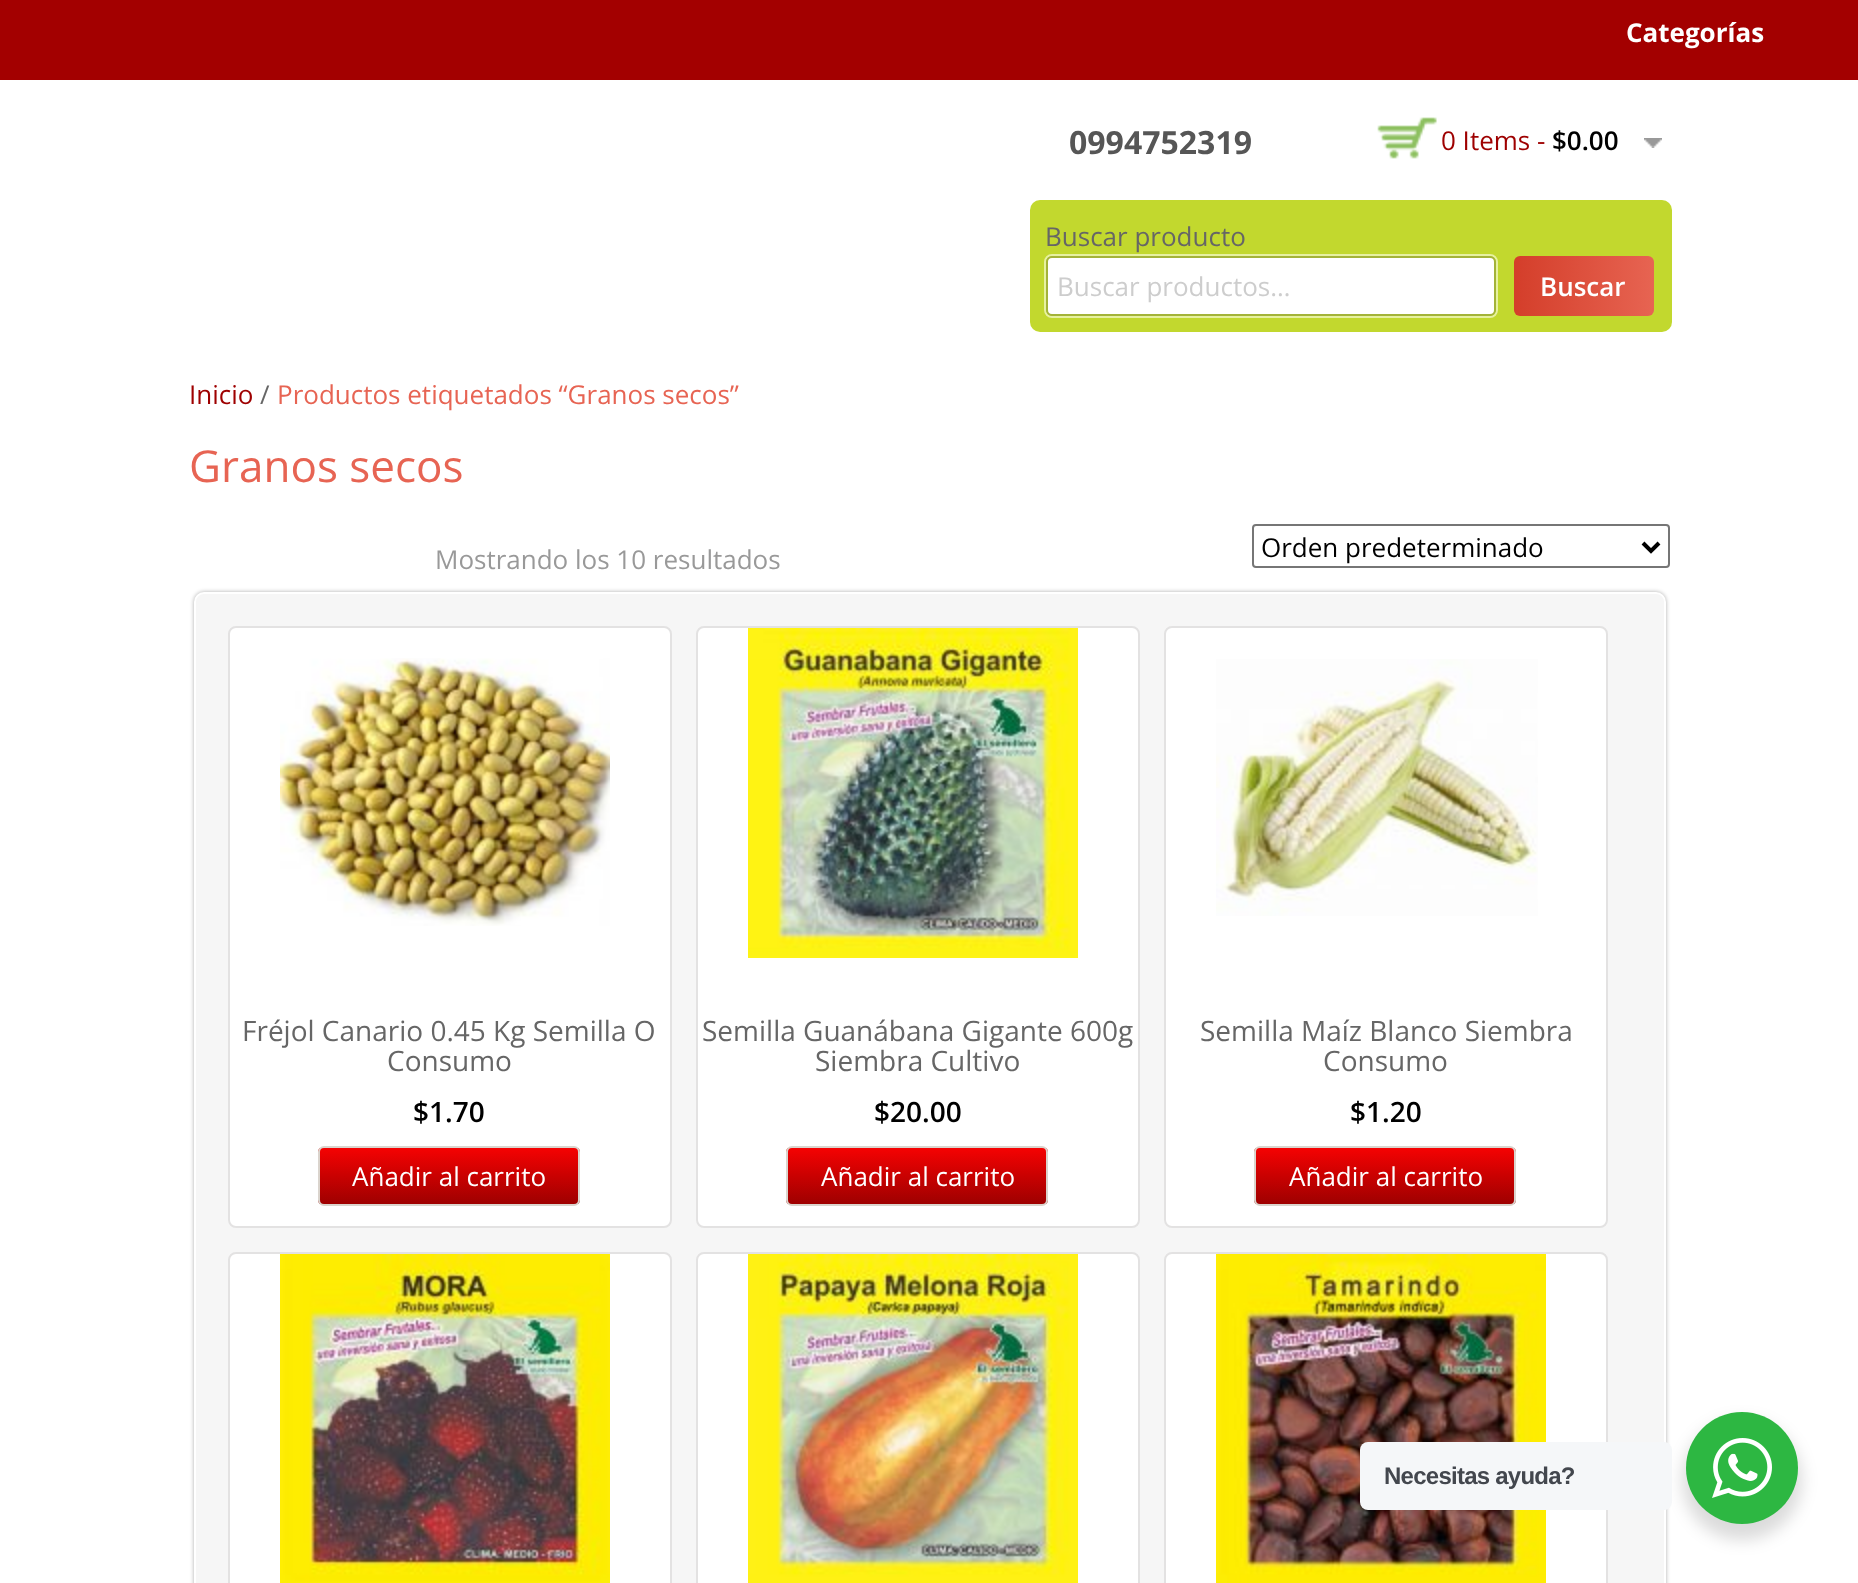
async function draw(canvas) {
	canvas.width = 1858;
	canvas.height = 1583;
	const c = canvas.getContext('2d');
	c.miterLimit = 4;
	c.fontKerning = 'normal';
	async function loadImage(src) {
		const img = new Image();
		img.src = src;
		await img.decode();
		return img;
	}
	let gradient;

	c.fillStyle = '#fff';
	c.fillRect(0, 0, 1858, 1583);
	c.fillStyle = '#a30000';
	c.fillRect(0, 0, 1858, 80);
	c.font = 'bold 26px Open Sans';
	c.fillStyle = '#fff';
	c.fillText('Categorías', 1626, 42);
	c.font = 'bold 32px Open Sans';
	c.fillStyle = '#565656';
	c.fillText('0994752319', 1069, 154);
	c.drawImage(await loadImage('img1.png'), 1377, 117, 60, 42);
	c.font = '26px Open Sans';
	c.fillStyle = '#9e0000';
	c.fillText('0 Items -', 1441, 150);
	c.font = '600 26px Open Sans';
	c.fillStyle = '#000';
	c.fillText('$0.00', 1552, 150);
	c.drawImage(await loadImage('img2.png'), 1644, 138, 18, 10);
	c.fillStyle = '#c2d82e';
	c.beginPath();
	c.roundRect(1030, 200, 642, 132, 10);
	c.fill();
	c.font = '26px Open Sans';
	c.fillStyle = '#666';
	c.fillText('Buscar producto', 1045, 246);
	c.beginPath();
	c.roundRect(1045, 255, 452, 62, 7);
	c.strokeStyle = '#e7f1a1';
	c.lineWidth = 2;
	c.stroke();
	c.fillStyle = '#fff';
	c.beginPath();
	c.roundRect(1047, 257, 448, 58, 5);
	c.fill();
	c.strokeStyle = '#a3b338';
	c.stroke();
	c.fillStyle = '#cdcdcd';
	c.fillText('Buscar productos…', 1057, 296);
	gradient = c.createLinearGradient(1514, 286, 1654, 286);
	gradient.addColorStop(0, '#d43e2a');
	gradient.addColorStop(1, '#e76452');
	c.fillStyle = gradient;
	c.beginPath();
	c.roundRect(1514, 256, 140, 60, 6);
	c.fill();
	c.font = '600 26px Open Sans';
	c.fillStyle = '#fff';
	c.fillText('Buscar', 1540, 296);
	c.font = '26px Open Sans';
	c.fillStyle = '#9e0000';
	c.fillText('Inicio', 189, 404);
	c.fillStyle = '#666';
	c.fillText('/', 260, 404);
	c.fillStyle = '#e76453';
	c.fillText('Productos etiquetados “Granos secos”', 277, 404);
	c.font = '44px Open Sans';
	c.fillText('Granos secos', 189, 482);
	c.font = '26px Open Sans';
	c.fillStyle = '#999';
	c.fillText('Mostrando los 10 resultados', 435, 569);
	c.beginPath();
	c.roundRect(1253, 525, 416, 42, 3);
	c.strokeStyle = '#767676';
	c.stroke();
	c.beginPath();
	c.moveTo(1643, 543);
	c.lineTo(1651, 551);
	c.lineTo(1659, 543);
	c.strokeStyle = '#000';
	c.lineWidth = 4;
	c.stroke();
	c.fillStyle = '#000';
	c.fillText('Orden predeterminado', 1261, 557);
	c.fillStyle = '#00000052';
	c.filter = 'blur(2px)';
	c.beginPath();
	c.roundRect(194, 592, 1472, 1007, 10);
	c.fill();
	c.filter = 'none';
	c.fillStyle = '#f6f6f6';
	c.beginPath();
	c.roundRect(195, 593, 1470, 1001, 9);
	c.fill();
	c.strokeStyle = '#fff';
	c.lineWidth = 2;
	c.stroke();
	c.fillStyle = '#fff';
	c.beginPath();
	c.roundRect(229, 627, 442, 600, 7);
	c.fill();
	c.strokeStyle = '#e3e2e2';
	c.stroke();
	c.drawImage(await loadImage('img3.png'), 280, 658, 330, 268);
	c.font = '28px Open Sans';
	c.fillStyle = '#666';
	c.fillText('Fréjol Canario 0.45 Kg Semilla O', 242, 1041);
	c.fillText('Consumo', 387, 1071);
	c.font = '600 28px Open Sans';
	c.fillStyle = '#000';
	c.fillText('$1.70', 413, 1122);
	c.save();
	c.beginPath();
	c.roundRect(318, 1146, 262, 60, 6);
	c.clip();
	gradient = c.createLinearGradient(449, 1148, 449, 1204);
	gradient.addColorStop(0, '#f50202');
	gradient.addColorStop(1, '#9e0000');
	c.fillStyle = gradient;
	c.fillRect(318, 1148, 262, 56);
	c.restore();
	c.beginPath();
	c.roundRect(319, 1147, 260, 58, 5);
	c.strokeStyle = '#dad4cd';
	c.stroke();
	c.font = '26px Open Sans';
	c.fillStyle = '#fff';
	c.fillText('Añadir al carrito', 352, 1186);
	c.beginPath();
	c.roundRect(697, 627, 442, 600, 7);
	c.fill();
	c.strokeStyle = '#e3e2e2';
	c.stroke();
	c.drawImage(await loadImage('img4.png'), 748, 628, 330, 330);
	c.font = '28px Open Sans';
	c.fillStyle = '#666';
	c.fillText('Semilla Guanábana Gigante 600g', 702, 1041);
	c.fillText('Siembra Cultivo', 815, 1071);
	c.font = '600 28px Open Sans';
	c.fillStyle = '#000';
	c.fillText('$20.00', 874, 1122);
	c.save();
	c.beginPath();
	c.roundRect(786, 1146, 262, 60, 6);
	c.clip();
	gradient = c.createLinearGradient(917, 1148, 917, 1204);
	gradient.addColorStop(0, '#f50202');
	gradient.addColorStop(1, '#9e0000');
	c.fillStyle = gradient;
	c.fillRect(786, 1148, 262, 56);
	c.restore();
	c.beginPath();
	c.roundRect(787, 1147, 260, 58, 5);
	c.strokeStyle = '#dad4cd';
	c.stroke();
	c.font = '26px Open Sans';
	c.fillStyle = '#fff';
	c.fillText('Añadir al carrito', 821, 1186);
	c.beginPath();
	c.roundRect(1165, 627, 442, 600, 7);
	c.fill();
	c.strokeStyle = '#e3e2e2';
	c.stroke();
	c.drawImage(await loadImage('img5.png'), 1216, 659, 322, 257);
	c.font = '28px Open Sans';
	c.fillStyle = '#666';
	c.fillText('Semilla Maíz Blanco Siembra', 1200, 1041);
	c.fillText('Consumo', 1323, 1071);
	c.font = '600 28px Open Sans';
	c.fillStyle = '#000';
	c.fillText('$1.20', 1350, 1122);
	c.save();
	c.beginPath();
	c.roundRect(1254, 1146, 262, 60, 6);
	c.clip();
	gradient = c.createLinearGradient(1385, 1148, 1385, 1204);
	gradient.addColorStop(0, '#f50202');
	gradient.addColorStop(1, '#9e0000');
	c.fillStyle = gradient;
	c.fillRect(1254, 1148, 262, 56);
	c.restore();
	c.beginPath();
	c.roundRect(1255, 1147, 260, 58, 5);
	c.strokeStyle = '#dad4cd';
	c.stroke();
	c.font = '26px Open Sans';
	c.fillStyle = '#fff';
	c.fillText('Añadir al carrito', 1289, 1186);
	c.beginPath();
	c.roundRect(229, 1253, 442, 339, 7);
	c.fill();
	c.strokeStyle = '#e3e2e2';
	c.stroke();
	c.drawImage(await loadImage('img6.png'), 280, 1254, 330, 329);
	c.beginPath();
	c.roundRect(697, 1253, 442, 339, 7);
	c.fill();
	c.stroke();
	c.drawImage(await loadImage('img7.png'), 748, 1254, 330, 329);
	c.beginPath();
	c.roundRect(1165, 1253, 442, 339, 7);
	c.fill();
	c.stroke();
	c.drawImage(await loadImage('img8.png'), 1216, 1254, 330, 329);
	c.fillStyle = '#00000024';
	c.filter = 'blur(8px)';
	c.beginPath();
	c.roundRect(1682, 1420, 120, 120, 60);
	c.fill();
	c.filter = 'none';
	c.fillStyle = '#f5f7f9';
	c.beginPath();
	c.roundRect(1360, 1442, 312, 68, 8);
	c.fill();
	c.letterSpacing = '-0.75px';
	c.font = 'bold 24px Liberation Sans';
	c.fillStyle = '#43474e';
	c.fillText('Necesitas ayuda?', 1384, 1484);
	c.fillStyle = '#2db742';
	c.beginPath();
	c.arc(1742, 1468, 56, 0, 2 * Math.PI);
	c.fill();
	c.drawImage(await loadImage('img9.png'), 1712, 1438, 60, 60);
}

draw(document.querySelector('canvas'));
